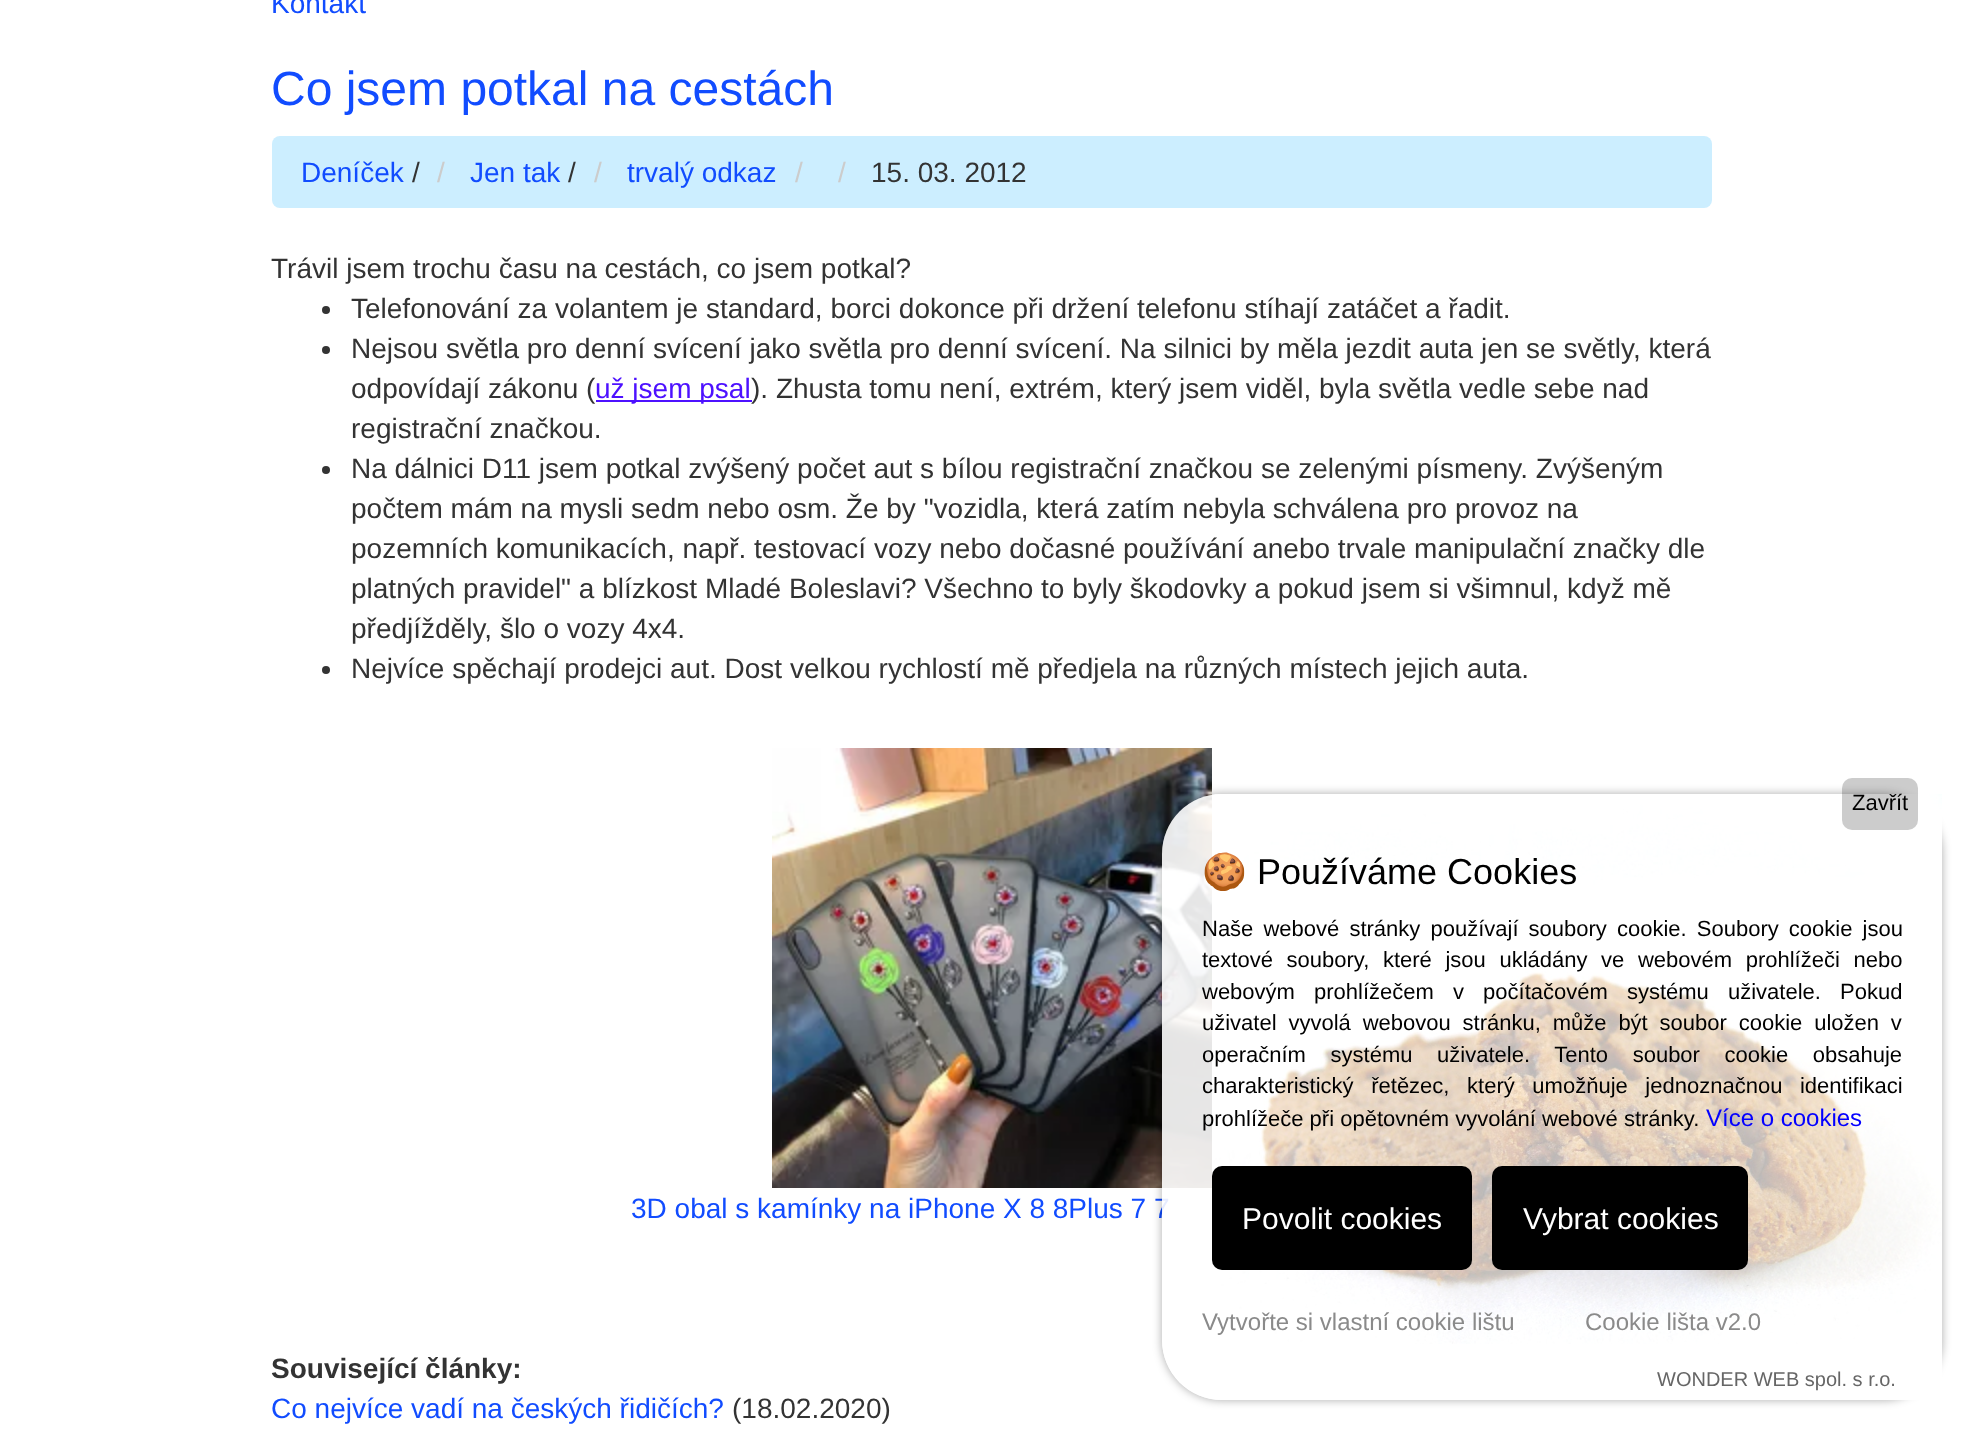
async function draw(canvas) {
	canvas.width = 1981;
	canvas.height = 1440;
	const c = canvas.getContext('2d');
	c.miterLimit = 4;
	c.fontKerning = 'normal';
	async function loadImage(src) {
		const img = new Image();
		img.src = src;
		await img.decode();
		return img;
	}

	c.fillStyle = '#fff';
	c.fillRect(0, 0, 1981, 1440);
	c.font = '28px Liberation Sans';
	c.fillStyle = '#114cff';
	c.fillText('Kontakt', 271, 13);
	c.font = '48px Liberation Sans';
	c.fillText('Co jsem potkal na cestách', 271, 105);
	c.fillStyle = '#cef';
	c.beginPath();
	c.roundRect(272, 136, 1440, 72, 8);
	c.fill();
	c.font = '28px Liberation Sans';
	c.fillStyle = '#114cff';
	c.fillText('Deníček', 301, 182);
	c.fillStyle = '#333';
	c.fillText('/', 412, 182);
	c.fillStyle = '#ccc';
	c.fillText('/', 437, 182);
	c.fillStyle = '#114cff';
	c.fillText('Jen tak', 470, 182);
	c.fillStyle = '#333';
	c.fillText('/', 568, 182);
	c.fillStyle = '#ccc';
	c.fillText('/', 594, 182);
	c.fillStyle = '#114cff';
	c.fillText('trvalý odkaz', 627, 182);
	c.fillStyle = '#ccc';
	c.fillText('/', 795, 182);
	c.fillText('/', 838, 182);
	c.fillStyle = '#333';
	c.fillText('15. 03. 2012', 871, 182);
	c.fillText('Trávil jsem trochu času na cestách, co jsem potkal?', 271, 278);
	c.beginPath();
	c.arc(326, 310, 4, 0, 2 * Math.PI);
	c.fill();
	c.fillText('Telefonování za volantem je standard, borci dokonce při držení telefonu stíhají zatáčet a řadit.', 351, 318);
	c.beginPath();
	c.arc(326, 350, 4, 0, 2 * Math.PI);
	c.fill();
	c.fillText('Nejsou světla pro denní svícení jako světla pro denní svícení. Na silnici by měla jezdit auta jen se světly, která', 351, 358);
	c.fillText('odpovídají zákonu (', 351, 398);
	c.fillStyle = '#4d11ff';
	c.fillRect(596, 400, 156, 2);
	c.fillText('už jsem psal', 595, 398);
	c.fillStyle = '#333';
	c.fillText('). Zhusta tomu není, extrém, který jsem viděl, byla světla vedle sebe nad', 751, 398);
	c.fillText('registrační značkou.', 351, 438);
	c.beginPath();
	c.arc(326, 470, 4, 0, 2 * Math.PI);
	c.fill();
	for (const [text, x, y] of [
		['Na dálnici D11 jsem potkal zvýšený počet aut s bílou registrační značkou se zelenými písmeny. Zvýšeným', 351, 478],
		['počtem mám na mysli sedm nebo osm. Že by "vozidla, která zatím nebyla schválena pro provoz na', 351, 518],
		['pozemních komunikacích, např. testovací vozy nebo dočasné používání anebo trvale manipulační značky dle', 351, 558],
		['platných pravidel" a blízkost Mladé Boleslavi? Všechno to byly škodovky a pokud jsem si všimnul, když mě', 351, 598],
		['předjížděly, šlo o vozy 4x4.', 351, 638],
	]) {
		c.fillText(text, x, y);
	}
	c.beginPath();
	c.arc(326, 670, 4, 0, 2 * Math.PI);
	c.fill();
	c.fillText('Nejvíce spěchají prodejci aut. Dost velkou rychlostí mě předjela na různých místech jejich auta.', 351, 678);
	c.drawImage(await loadImage('img1.png'), 772, 748, 440, 440);
	c.fillStyle = '#114cff';
	c.fillText('3D obal s kamínky na iPhone X 8 8Plus 7 7', 631, 1218);
	c.font = 'bold 28px Liberation Sans';
	c.fillStyle = '#333';
	c.fillText('Související články:', 271, 1378);
	c.font = '28px Liberation Sans';
	c.fillStyle = '#114cff';
	c.fillText('Co nejvíce vadí na českých řidičích?', 271, 1418);
	c.fillStyle = '#333';
	c.fillText('(18.02.2020)', 732, 1418);
	c.save();
	c.beginPath();
	c.moveTo(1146, 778);
	c.lineTo(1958, 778);
	c.lineTo(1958, 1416);
	c.lineTo(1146, 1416);
	c.closePath();
	c.moveTo(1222, 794);
	c.lineTo(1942, 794);
	c.lineTo(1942, 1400);
	c.lineTo(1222, 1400);
	c.bezierCurveTo(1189, 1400, 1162, 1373, 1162, 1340);
	c.lineTo(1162, 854);
	c.bezierCurveTo(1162, 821, 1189, 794, 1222, 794);
	c.closePath();
	c.clip('evenodd');
	c.fillStyle = '#00000054';
	c.filter = 'blur(5px)';
	c.beginPath();
	c.roundRect(1162, 794, 780, 606, 60);
	c.fill();
	c.filter = 'none';
	c.restore();
	c.fillStyle = '#ffffffd9';
	c.beginPath();
	c.roundRect(1162, 794, 780, 606, [60, 0, 0, 60]);
	c.fill();
	c.drawImage(await loadImage('img2.png'), 1162, 794, 780, 550);
	c.fillStyle = '#00000033';
	c.beginPath();
	c.roundRect(1842, 778, 76, 52, 10);
	c.fill();
	c.font = '22px Liberation Sans';
	c.fillStyle = '#000';
	c.fillText('Zavřít', 1852, 810);
	c.font = '36px Noto Color Emoji';
	c.fillText('🍪', 1202, 884);
	c.font = '36px Liberation Sans';
	c.fillText('Používáme Cookies', 1257, 884);
	c.wordSpacing = '4px';
	c.font = '22px Liberation Sans';
	c.fillText('Naše webové stránky používají soubory cookie. Soubory cookie jsou', 1202, 936);
	c.wordSpacing = '7.5px';
	c.fillText('textové soubory, které jsou ukládány ve webovém prohlížeči nebo', 1202, 967);
	c.wordSpacing = '13px';
	c.fillText('webovým prohlížečem v počítačovém systému uživatele. Pokud', 1202, 999);
	c.wordSpacing = '5.75px';
	c.fillText('uživatel vyvolá webovou stránku, může být soubor cookie uložen v', 1202, 1030);
	c.wordSpacing = '18.5px';
	c.fillText('operačním systému uživatele. Tento soubor cookie obsahuje', 1202, 1062);
	c.wordSpacing = '11.5px';
	c.fillText('charakteristický řetězec, který umožňuje jednoznačnou identifikaci', 1202, 1093);
	c.wordSpacing = '0px';
	c.fillText('prohlížeče při opětovném vyvolání webové stránky.', 1202, 1126);
	c.font = '24px Liberation Sans';
	c.fillStyle = '#0400ff';
	c.fillText('Více o cookies', 1706, 1126);
	c.fillStyle = '#000';
	c.beginPath();
	c.roundRect(1212, 1166, 260, 104, 10);
	c.fill();
	c.font = '30px Liberation Sans';
	c.fillStyle = '#fff';
	c.fillText('Povolit cookies', 1242, 1229);
	c.fillStyle = '#000';
	c.beginPath();
	c.roundRect(1492, 1166, 256, 104, 10);
	c.fill();
	c.fillStyle = '#fff';
	c.fillText('Vybrat cookies', 1523, 1229);
	c.font = '24px Liberation Sans';
	c.fillStyle = '#8a8a8a';
	c.fillText('Vytvořte si vlastní cookie lištu', 1202, 1330);
	c.fillText('Cookie lišta v2.0', 1585, 1330);
	c.font = '20px Liberation Sans';
	c.fillStyle = '#666';
	c.fillText('WONDER WEB spol. s r.o.', 1657, 1386);
}

draw(document.querySelector('canvas'));
